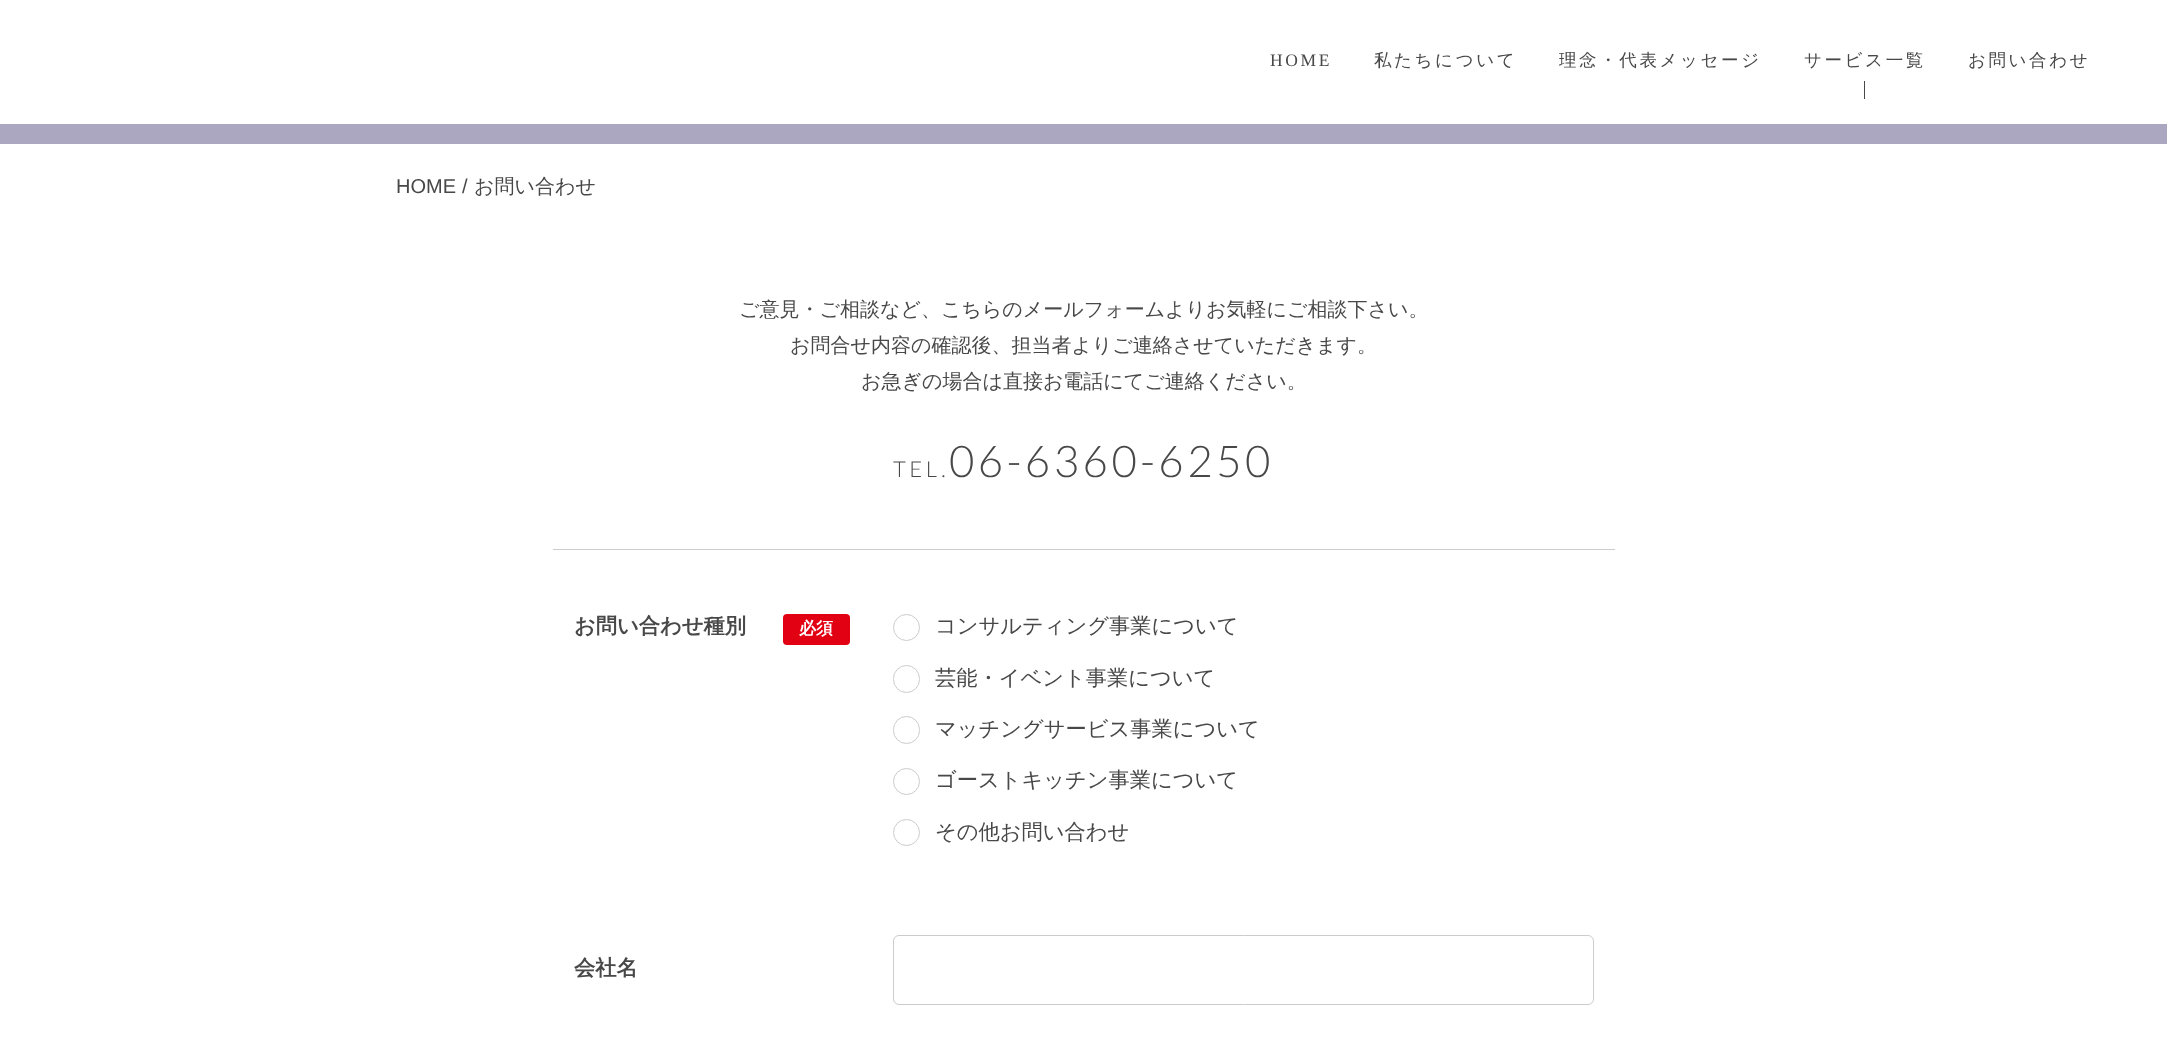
async function draw(canvas) {
	canvas.width = 2167;
	canvas.height = 1061;
	const c = canvas.getContext('2d');
	c.miterLimit = 4;
	c.fontKerning = 'normal';

	c.fillStyle = '#fff';
	c.fillRect(0, 0, 2167, 1061);
	c.letterSpacing = '2.6px';
	c.font = '17.5px Liberation Serif';
	c.fillStyle = '#484848';
	c.fillText('HOME', 1270, 66);
	c.font = '500 17.5px WenQuanYi Zen Hei';
	for (const [text, x, y] of [
		['私たちについて', 1374, 66],
		['理念・代表メッセージ', 1559, 66],
		['サービス一覧', 1804, 66],
	]) {
		c.fillText(text, x, y);
	}
	c.fillRect(1864, 81, 1, 18);
	c.fillText('お問い合わせ', 1968, 66);
	c.fillStyle = '#aba7c1';
	c.fillRect(0, 124, 2167, 20);
	c.letterSpacing = '0px';
	c.font = '20px Liberation Sans';
	c.fillStyle = '#484848';
	c.fillText('HOME', 396, 193);
	c.fillText('/', 462, 193);
	c.font = '500 20px WenQuanYi Zen Hei';
	for (const [text, x, y] of [
		['お問い合わせ', 474, 193],
		['ご意見・ご相談など、こちらのメールフォームよりお気軽にご相談下さい。', 739, 316],
		['お問合せ内容の確認後、担当者よりご連絡させていただきます。', 790, 352],
		['お急ぎの場合は直接お電話にてご連絡ください。', 861, 388],
	]) {
		c.fillText(text, x, y);
	}
	c.letterSpacing = '3.5px';
	c.font = '300 22px Lato';
	c.fillText('TEL.', 893, 477);
	c.font = '300 43.75px Lato';
	c.fillText('06-6360-6250', 949, 477);
	c.fillStyle = '#ccc';
	c.fillRect(553, 549, 1062, 1);
	c.letterSpacing = '0px';
	c.font = 'bold 21.25px WenQuanYi Zen Hei';
	c.fillStyle = '#484848';
	c.fillText('お問い合わせ種別', 574, 633);
	c.fillStyle = '#e20112';
	c.beginPath();
	c.roundRect(783, 614, 67, 31, 4);
	c.fill();
	c.font = 'bold 17px WenQuanYi Zen Hei';
	c.fillStyle = '#fff';
	c.fillText('必須', 799, 634);
	c.beginPath();
	c.arc(906.5, 627.5, 13, 0, 2 * Math.PI);
	c.strokeStyle = '#ccc';
	c.stroke();
	c.font = '500 21.25px WenQuanYi Zen Hei';
	c.fillStyle = '#484848';
	c.fillText('コンサルティング事業について', 935, 633);
	c.beginPath();
	c.roundRect(893.5, 665.5, 26, 27, 13);
	c.stroke();
	c.fillText('芸能・イベント事業について', 935, 685);
	c.beginPath();
	c.roundRect(893.5, 716.5, 26, 27, 13);
	c.stroke();
	c.fillText('マッチングサービス事業について', 935, 736);
	c.beginPath();
	c.arc(906.5, 781.5, 13, 0, 2 * Math.PI);
	c.stroke();
	c.fillText('ゴーストキッチン事業について', 935, 787);
	c.beginPath();
	c.arc(906.5, 832.5, 13, 0, 2 * Math.PI);
	c.stroke();
	c.fillText('その他お問い合わせ', 935, 839);
	c.font = 'bold 21.25px WenQuanYi Zen Hei';
	c.fillText('会社名', 574, 975);
	c.beginPath();
	c.roundRect(893.5, 935.5, 700, 69, 5.5);
	c.stroke();
}

draw(document.querySelector('canvas'));
